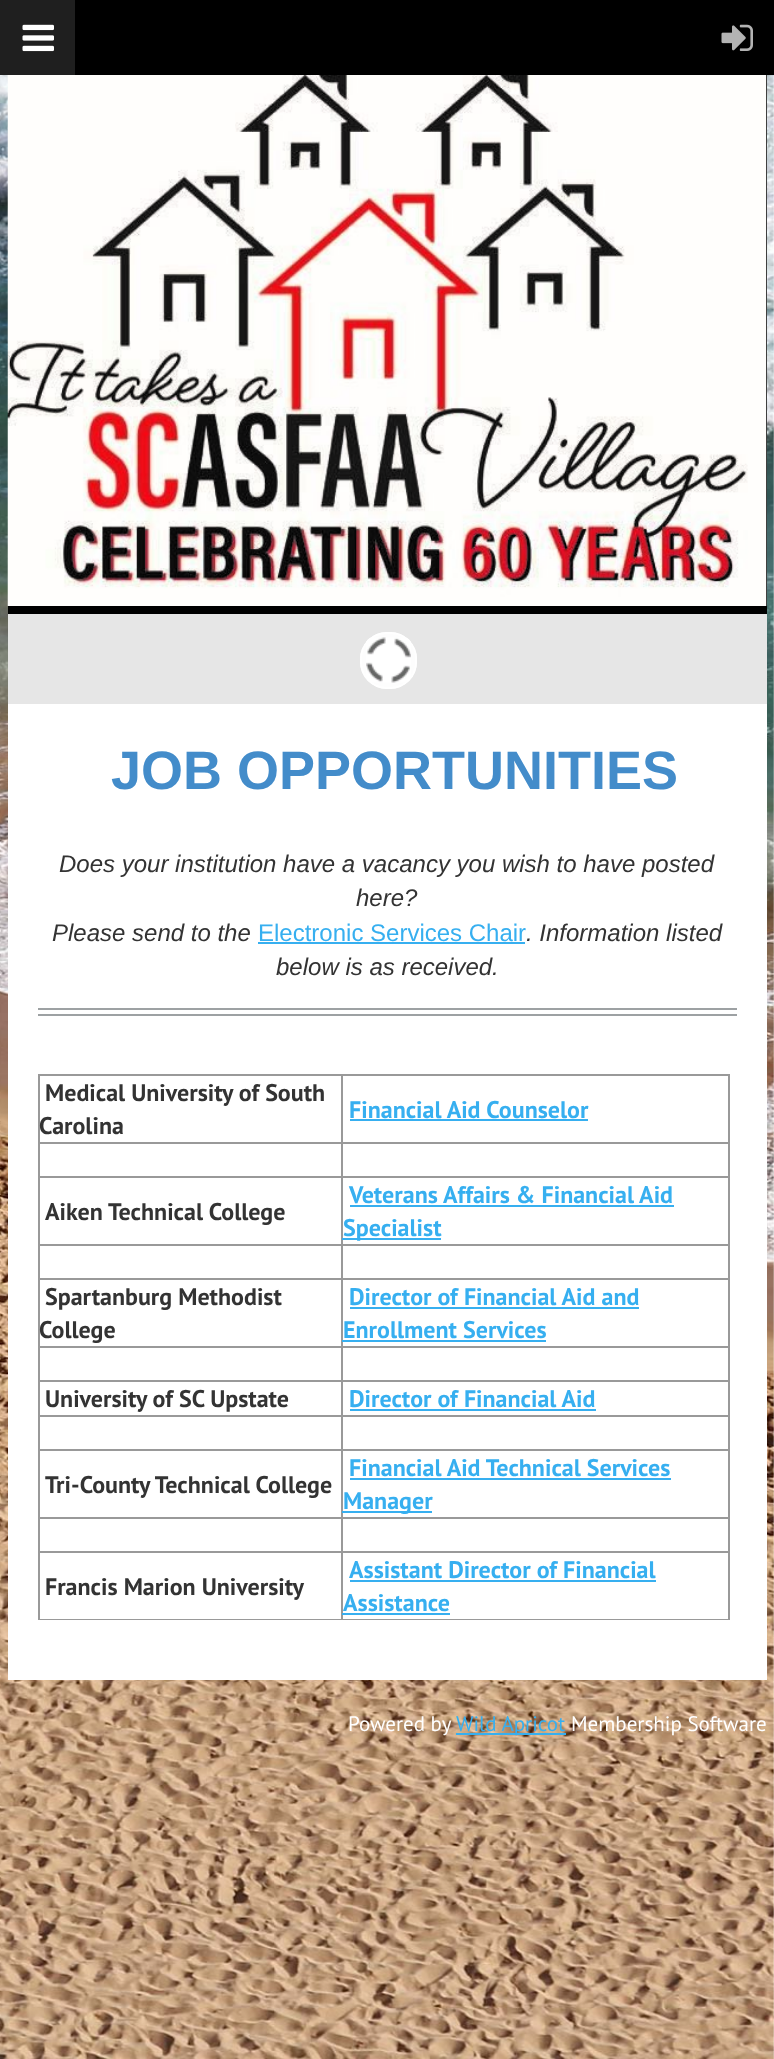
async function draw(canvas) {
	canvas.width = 774;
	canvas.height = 2059;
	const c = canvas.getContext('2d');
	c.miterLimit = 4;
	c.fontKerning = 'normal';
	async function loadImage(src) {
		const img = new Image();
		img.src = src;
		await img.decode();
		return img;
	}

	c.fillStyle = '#fff';
	c.fillRect(0, 0, 774, 2059);
	c.drawImage(await loadImage('img1.png'), 0, 75, 774, 1984);
	c.fillStyle = '#000';
	c.fillRect(75, 0, 699, 75);
	c.fillStyle = '#1f1f1f';
	c.fillRect(0, 0, 75, 75);
	c.drawImage(await loadImage('img2.png'), 22, 24, 32, 28);
	c.drawImage(await loadImage('img3.png'), 721, 24, 32, 27);
	c.fillStyle = '#000';
	c.fillRect(8, 75, 759, 539);
	c.drawImage(await loadImage('img4.png'), 7, 75, 760, 531);
	c.fillStyle = '#e6e6e6';
	c.fillRect(8, 614, 759, 90);
	c.fillStyle = '#fdfdfd';
	c.beginPath();
	c.roundRect(360, 632, 57, 57, 27);
	c.fill();
	c.drawImage(await loadImage('img5.png'), 366, 637, 45, 46);
	c.beginPath();
	c.roundRect(361, 633, 55, 55, 26);
	c.strokeStyle = '#fff';
	c.lineWidth = 2;
	c.stroke();
	c.fillStyle = '#fff';
	c.fillRect(8, 704, 759, 976);
	c.font = 'bold 54px Liberation Sans';
	c.fillStyle = '#438cca';
	c.fillText('JOB OPPORTUNITIES', 111, 789);
	c.font = 'italic 24px Liberation Sans';
	c.fillStyle = '#333';
	for (const [text, x, y] of [
		['Does your institution have a vacancy you wish to have posted', 59, 872],
		['here?', 356, 906],
		['Please send to the', 52, 941],
	]) {
		c.fillText(text, x, y);
	}
	c.font = '24px Liberation Sans';
	c.fillStyle = '#36aff0';
	c.fillText('Electronic Services Chair', 258, 941);
	c.fillRect(258, 942, 267, 2);
	c.font = 'italic 24px Liberation Sans';
	c.fillStyle = '#333';
	c.fillText('. Information listed', 526, 941);
	c.fillText('below is as received.', 276, 975);
	for (const [x, y, w, h, color] of [
		[38, 1008, 699, 2, '#9da1a3'],
		[38, 1014, 699, 2, '#9da1a3'],
		[38, 1074, 691, 2, '#999'],
		[728, 1074, 2, 546, '#999'],
		[38, 1619, 691, 1, '#999'],
		[38, 1074, 2, 546, '#999'],
	]) {
		c.fillStyle = color;
		c.fillRect(x, y, w, h);
	}
	c.font = 'bold 24px PT Sans';
	c.fillStyle = '#333';
	c.fillText('Medical University of South', 45, 1101);
	c.fillText('Carolina', 39, 1134);
	for (const [x, y, w, h, color] of [
		[341, 1142, 388, 2, '#999'],
		[341, 1176, 388, 2, '#999'],
		[341, 1244, 388, 2, '#999'],
		[341, 1278, 388, 2, '#999'],
		[341, 1346, 388, 2, '#999'],
		[341, 1380, 388, 2, '#999'],
		[341, 1415, 388, 2, '#999'],
		[341, 1449, 388, 2, '#999'],
		[341, 1517, 388, 2, '#999'],
		[341, 1551, 388, 2, '#999'],
		[341, 1551, 2, 69, '#999'],
		[38, 1551, 304, 2, '#999'],
		[341, 1517, 2, 36, '#999'],
		[38, 1517, 304, 2, '#999'],
		[341, 1449, 2, 69, '#999'],
		[38, 1449, 304, 2, '#999'],
		[341, 1415, 2, 36, '#999'],
		[38, 1415, 304, 2, '#999'],
		[341, 1380, 2, 36, '#999'],
		[38, 1380, 304, 2, '#999'],
		[341, 1346, 2, 36, '#999'],
		[38, 1346, 304, 2, '#999'],
		[341, 1278, 2, 69, '#999'],
		[38, 1278, 304, 2, '#999'],
		[341, 1244, 2, 36, '#999'],
		[38, 1244, 304, 2, '#999'],
		[341, 1176, 2, 69, '#999'],
		[38, 1176, 304, 2, '#999'],
		[341, 1142, 2, 36, '#999'],
		[38, 1142, 304, 2, '#999'],
		[341, 1074, 2, 69, '#999'],
	]) {
		c.fillStyle = color;
		c.fillRect(x, y, w, h);
	}
	c.fillStyle = '#36aff0';
	c.fillText('Financial Aid Counselor', 349, 1118);
	c.fillRect(350, 1119, 238, 2);
	c.fillStyle = '#333';
	c.fillText('Aiken Technical College', 45, 1220);
	c.fillStyle = '#36aff0';
	c.fillText('Veterans Affairs & Financial Aid', 349, 1203);
	c.fillRect(350, 1205, 324, 2);
	c.fillRect(342, 1238, 99, 2);
	c.fillText('Specialist', 343, 1236);
	c.fillStyle = '#333';
	c.fillText('Spartanburg Methodist', 45, 1305);
	c.fillText('College', 39, 1338);
	c.fillStyle = '#36aff0';
	c.fillText('Director of Financial Aid and', 349, 1305);
	c.fillRect(350, 1307, 289, 2);
	c.fillText('Enrollment Services', 343, 1338);
	c.fillRect(342, 1340, 204, 2);
	c.fillStyle = '#333';
	c.fillText('University of SC Upstate', 45, 1407);
	c.fillStyle = '#36aff0';
	c.fillText('Director of Financial Aid', 349, 1407);
	c.fillRect(350, 1409, 246, 2);
	c.fillStyle = '#333';
	c.fillText('Tri-County Technical College', 45, 1493);
	c.fillStyle = '#36aff0';
	c.fillText('Financial Aid Technical Services', 349, 1476);
	c.fillRect(350, 1478, 321, 2);
	c.fillRect(342, 1511, 90, 2);
	c.fillText('Manager', 343, 1509);
	c.fillStyle = '#333';
	c.fillText('Francis Marion University', 45, 1595);
	c.fillStyle = '#36aff0';
	c.fillText('Assistant Director of Financial', 349, 1578);
	c.fillRect(350, 1580, 306, 2);
	c.fillText('Assistance', 343, 1611);
	c.fillRect(342, 1613, 108, 2);
	c.font = '21px PT Sans';
	c.fillStyle = '#fff';
	c.fillText('Powered by', 348, 1731);
	c.fillStyle = '#36aff0';
	c.fillRect(456, 1733, 110, 2);
	c.fillText('Wild Apricot', 456, 1731);
	c.fillStyle = '#fff';
	c.fillText('Membership Software', 571, 1731);
}

draw(document.querySelector('canvas'));
